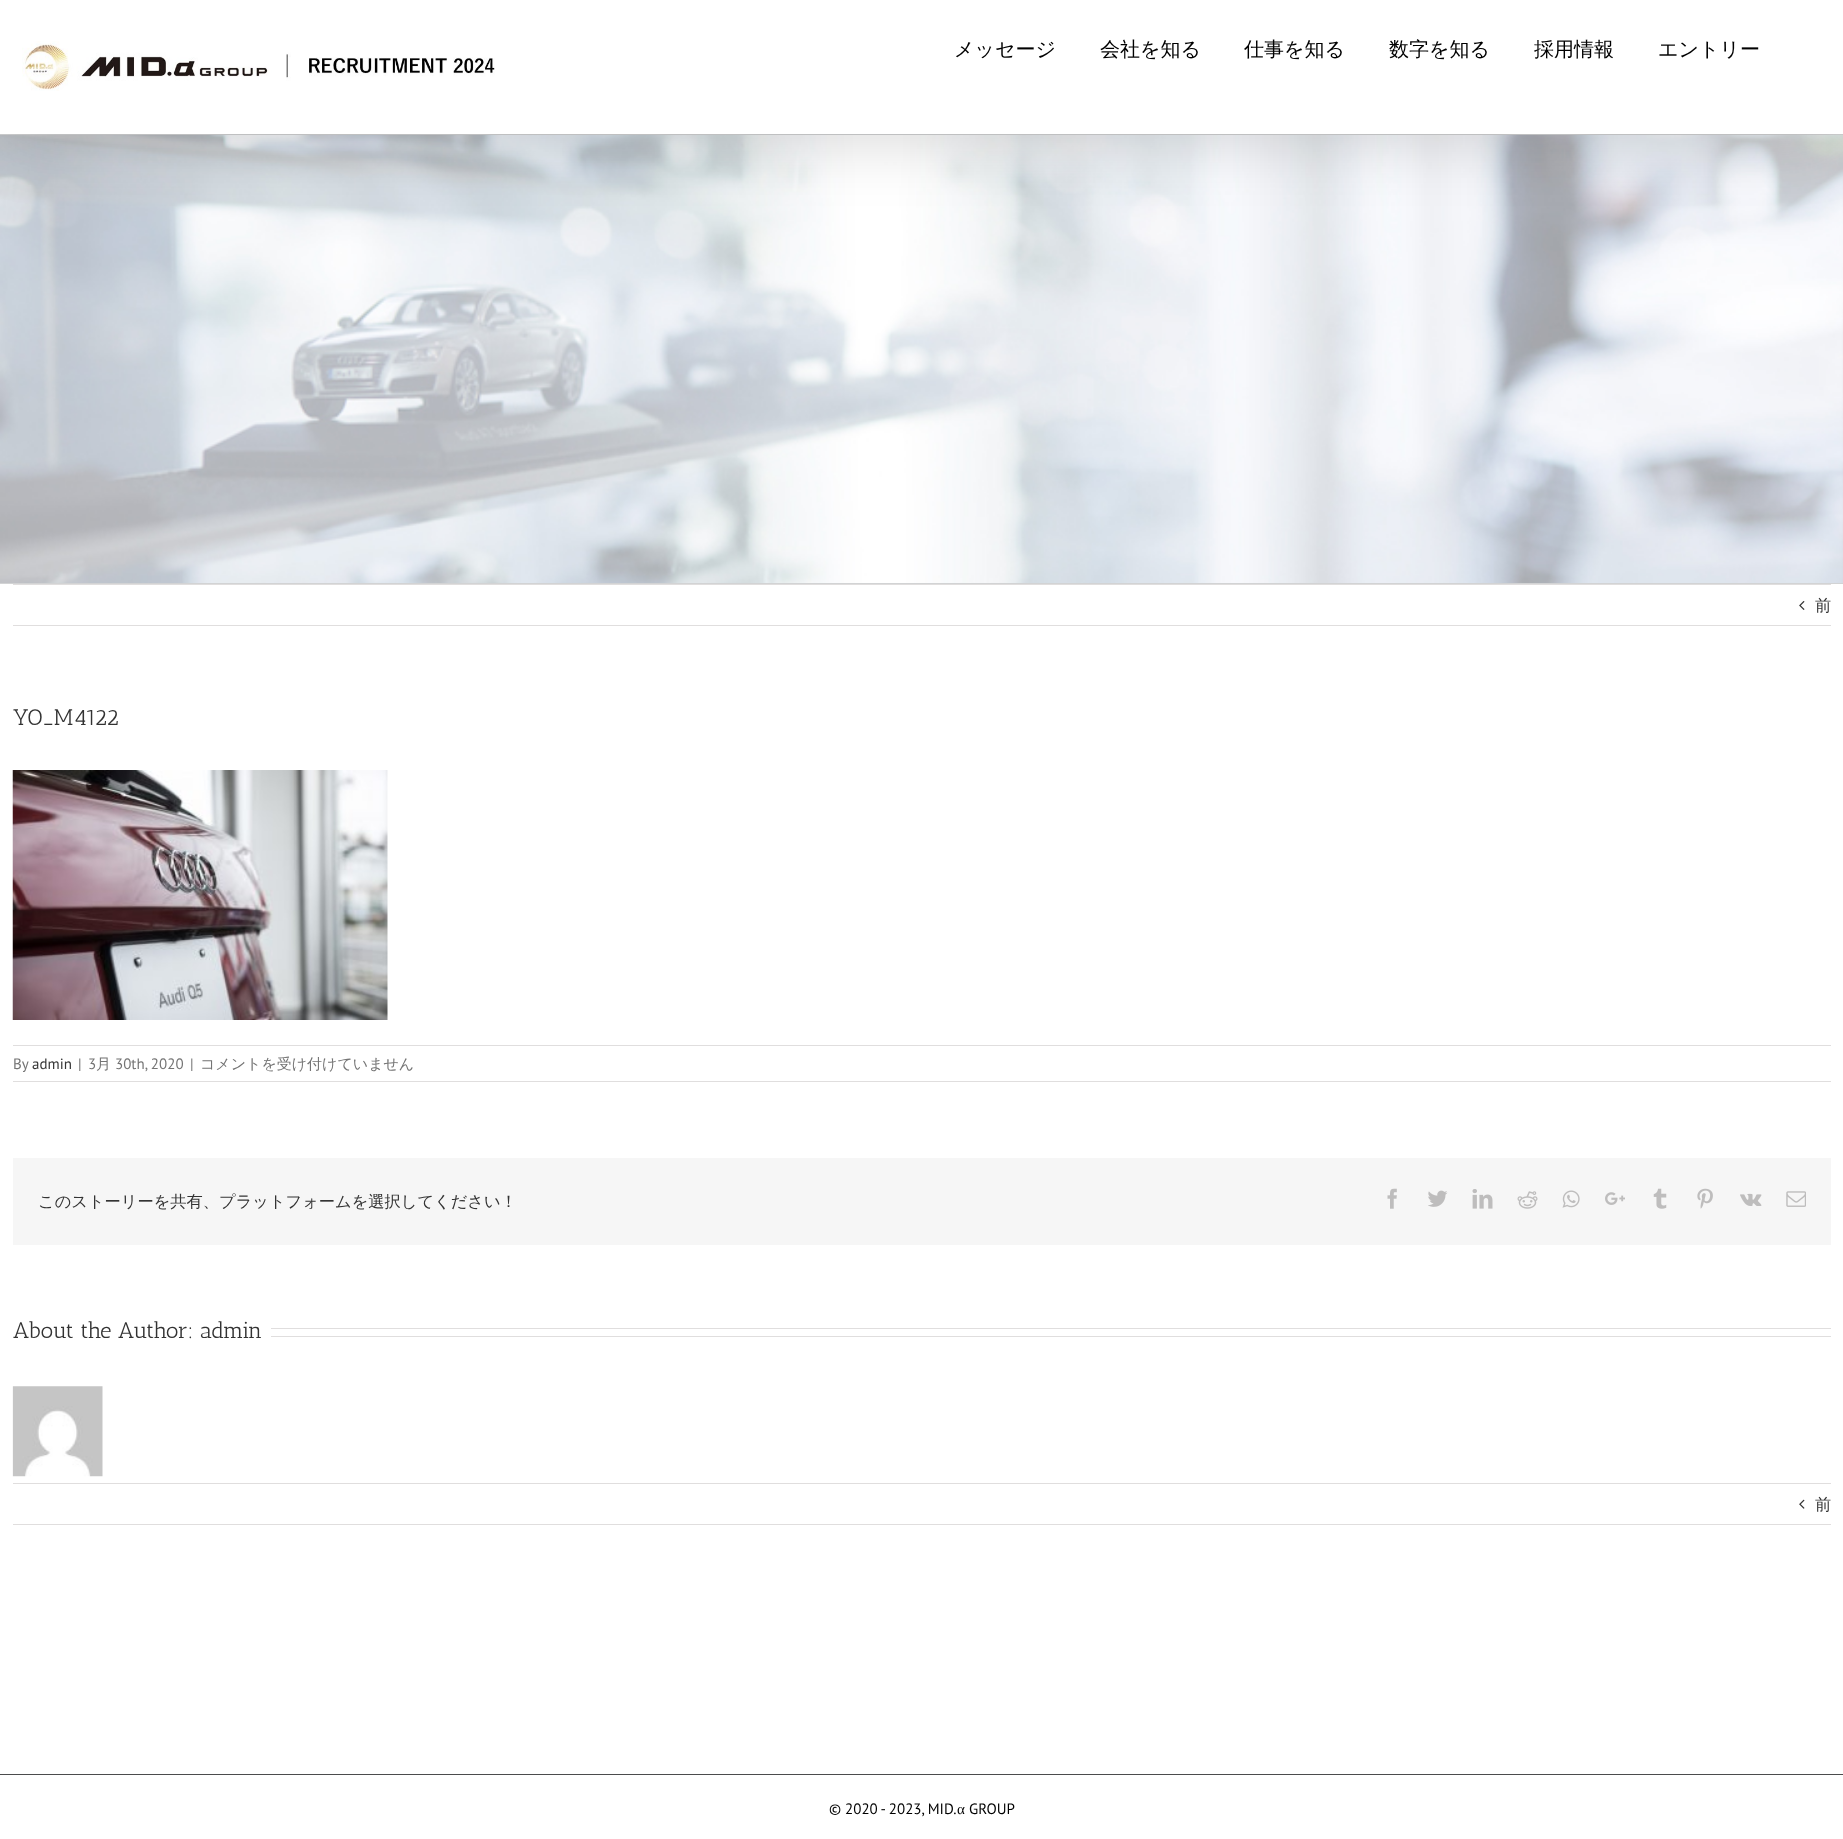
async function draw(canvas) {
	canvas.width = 1843;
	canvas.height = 1839;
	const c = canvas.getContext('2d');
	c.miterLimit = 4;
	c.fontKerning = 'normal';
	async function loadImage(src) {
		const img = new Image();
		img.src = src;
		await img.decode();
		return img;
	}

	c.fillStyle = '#fff';
	c.fillRect(0, 0, 1843, 1839);
	c.drawImage(await loadImage('img2.png'), 0, 135, 1843, 448);
	c.fillStyle = '#d2d3d4';
	c.fillRect(0, 134, 1843, 1);
	c.fillStyle = '#00000024';
	c.filter = 'blur(31px)';
	c.beginPath();
	c.rect(3, 15, 1838, 129);
	c.fill();
	c.filter = 'none';
	c.fillStyle = '#fff';
	c.fillRect(0, 0, 1843, 134);
	c.drawImage(await loadImage('img1.png'), 22, 41, 473, 50);
	c.font = '500 20px WenQuanYi Zen Hei';
	c.fillStyle = '#000';
	for (const [text, x, y] of [
		['メッセージ', 954, 56],
		['会社を知る', 1100, 56],
		['仕事を知る', 1244, 56],
		['数字を知る', 1389, 56],
		['採用情報', 1534, 56],
		['エントリー', 1658, 56],
	]) {
		c.fillText(text, x, y);
	}
	for (const [x, y, w, h, color] of [
		[0, 583, 1843, 1, '#d2d3d4'],
		[13, 584, 1818, 1, '#e0dede'],
		[13, 625, 1818, 1, '#e0dede'],
	]) {
		c.fillStyle = color;
		c.fillRect(x, y, w, h);
	}
	c.drawImage(await loadImage('img3.png'), 1799, 601, 6, 9);
	c.font = '500 16.25px WenQuanYi Zen Hei';
	c.fillStyle = '#333';
	c.fillText('前', 1815, 611);
	c.font = '22.5px Antic Slab';
	c.fillText('YO_M4122', 13, 725);
	c.drawImage(await loadImage('img4.png'), 12, 770, 376, 250);
	c.fillStyle = '#e0dede';
	c.fillRect(13, 1045, 1818, 1);
	c.fillRect(13, 1081, 1818, 1);
	c.font = '15px PT Sans';
	c.fillStyle = '#747474';
	c.fillText('By', 13, 1069);
	c.fillStyle = '#333';
	c.fillText('admin', 32, 1069);
	c.fillStyle = '#747474';
	c.fillText('|', 78, 1069);
	c.fillText('3', 88, 1069);
	c.font = '500 15px WenQuanYi Zen Hei';
	c.fillText('月', 96, 1069);
	c.font = '15px PT Sans';
	c.fillText('30th, 2020', 115, 1069);
	c.fillText('|', 190, 1069);
	c.font = '500 15px WenQuanYi Zen Hei';
	c.fillText('コメントを受け付けていません', 200, 1069);
	c.fillStyle = '#f6f6f6';
	c.fillRect(13, 1158, 1818, 87);
	c.font = '500 16.25px WenQuanYi Zen Hei';
	c.fillStyle = '#333';
	c.fillText('このストーリーを共有、プラットフォームを選択してください！', 38, 1207);
	c.drawImage(await loadImage('img5.png'), 1387, 1188, 10, 21);
	c.drawImage(await loadImage('img6.png'), 1428, 1190, 20, 17);
	c.drawImage(await loadImage('img7.png'), 1472, 1189, 21, 20);
	c.drawImage(await loadImage('img8.png'), 1517, 1191, 21, 18);
	c.drawImage(await loadImage('img9.png'), 1562, 1190, 18, 18);
	c.drawImage(await loadImage('img10.png'), 1605, 1192, 20, 13);
	c.drawImage(await loadImage('img11.png'), 1653, 1188, 14, 21);
	c.drawImage(await loadImage('img12.png'), 1697, 1188, 16, 21);
	c.drawImage(await loadImage('img13.png'), 1740, 1193, 22, 13);
	c.drawImage(await loadImage('img14.png'), 1786, 1191, 20, 16);
	c.font = '22.5px Antic Slab';
	c.fillText('About the Author: admin', 13, 1338);
	c.fillStyle = '#e0dede';
	c.fillRect(271, 1328, 1560, 1);
	c.fillRect(271, 1336, 1560, 1);
	c.drawImage(await loadImage('img15.png'), 12, 1386, 91, 91);
	c.fillRect(13, 1483, 1818, 1);
	c.fillRect(13, 1524, 1818, 1);
	c.drawImage(await loadImage('img16.png'), 1799, 1499, 6, 10);
	c.font = '500 16.25px WenQuanYi Zen Hei';
	c.fillStyle = '#333';
	c.fillText('前', 1815, 1510);
	c.fillStyle = '#4b4c4d';
	c.fillRect(0, 1774, 1843, 1);
	c.font = '15px PT Sans';
	c.fillStyle = '#000';
	c.fillText('© 2020 - 2023, MID.', 829, 1814);
	c.font = '15px Liberation Serif';
	c.fillText('α', 957, 1814);
	c.font = '15px PT Sans';
	c.fillText('GROUP', 969, 1814);
}

draw(document.querySelector('canvas'));
